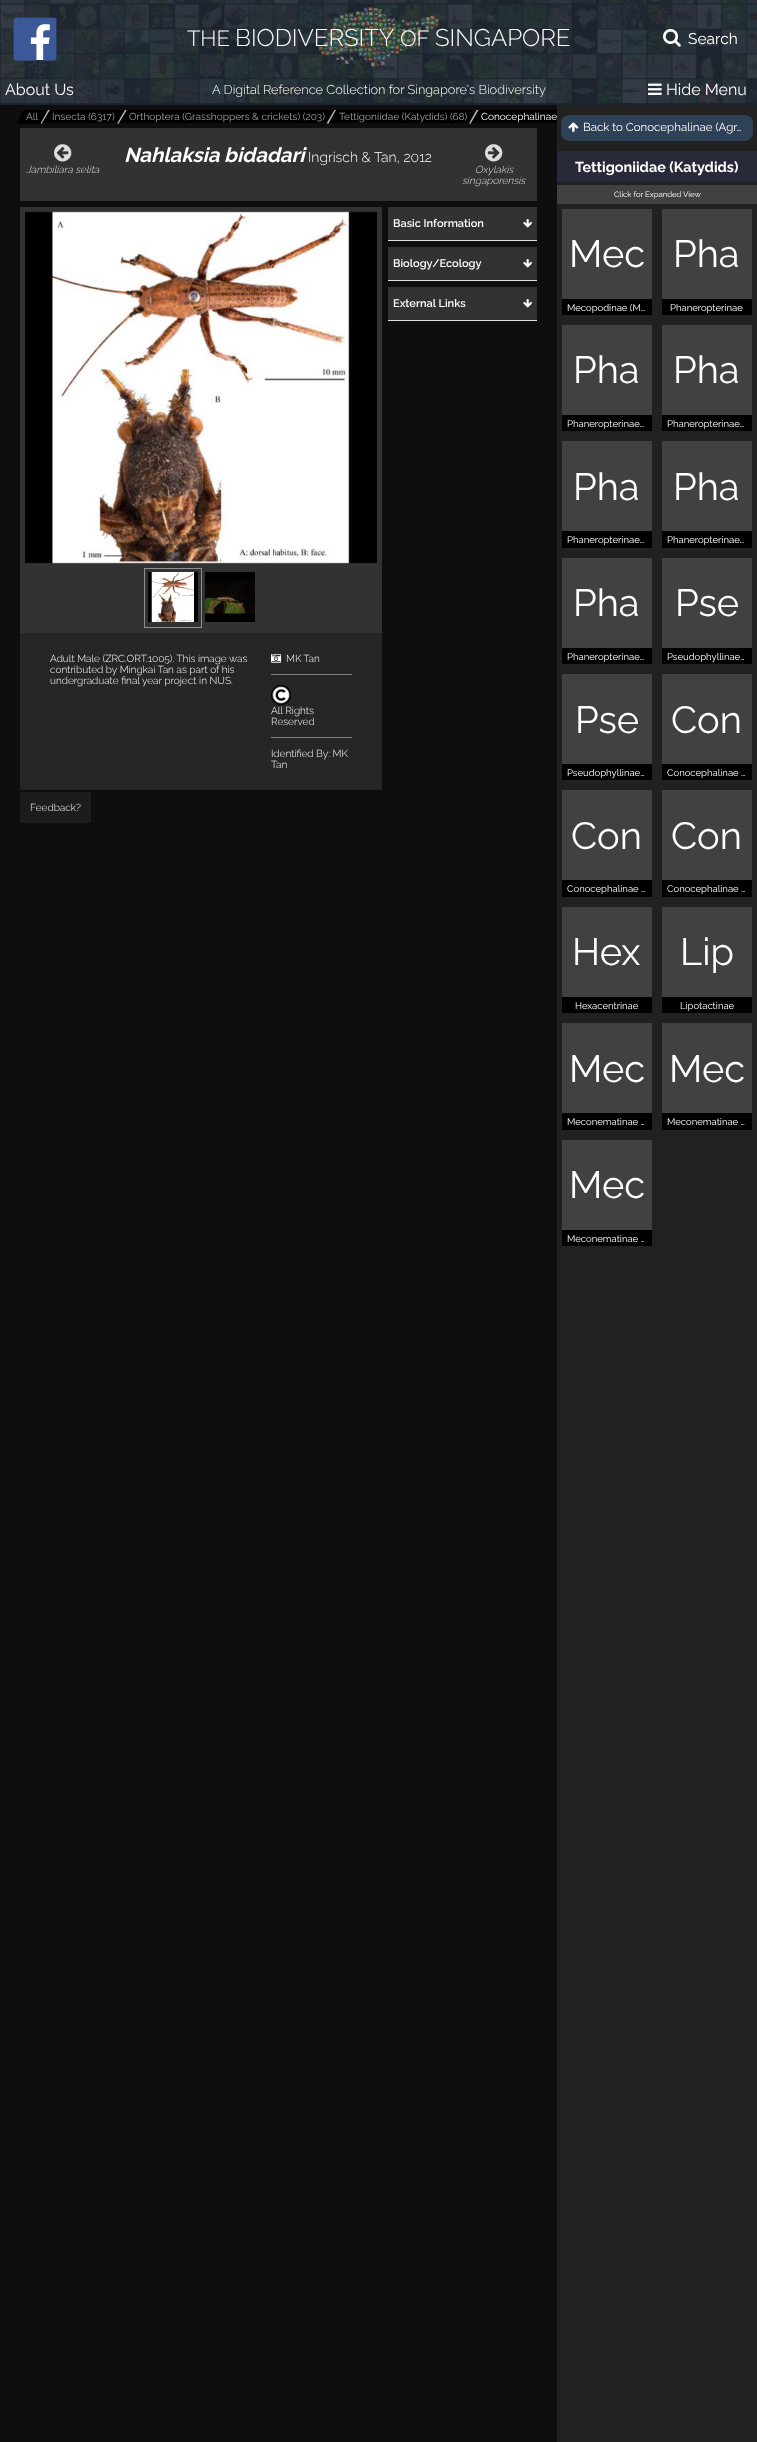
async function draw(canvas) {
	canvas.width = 757;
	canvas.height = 2442;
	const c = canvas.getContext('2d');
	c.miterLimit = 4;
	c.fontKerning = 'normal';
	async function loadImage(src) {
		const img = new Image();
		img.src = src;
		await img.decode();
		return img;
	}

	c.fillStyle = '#0e0e0e';
	c.fillRect(0, 0, 757, 2442);
	c.drawImage(await loadImage('img1.png'), 0, 0, 757, 105);
	c.fillStyle = '#fff';
	c.fillRect(30, 24, 20, 36);
	c.drawImage(await loadImage('img2.png'), 13, 17, 44, 44);
	c.drawImage(await loadImage('img3.png'), 318, 7, 121, 60);
	c.font = '300 22px Raleway';
	c.fillText('THE', 187, 46);
	c.font = '300 24px Raleway';
	c.fillText('BIODIVERSITY', 235, 46);
	c.font = '300 22px Raleway';
	c.fillText('OF', 400, 46);
	c.font = '300 24px Raleway';
	c.fillText('SINGAPORE', 435, 46);
	c.drawImage(await loadImage('img4.png'), 663, 28, 18, 19);
	c.font = '15.5px Raleway';
	c.fillText('Search', 688, 44);
	c.font = '16px Raleway';
	c.fillText('About Us', 5, 95);
	c.font = '300 12.8px Raleway';
	c.fillText('A Digital Reference Collection for Singapore\'s Biodiversity', 212, 94);
	c.drawImage(await loadImage('img5.png'), 648, 83, 14, 12);
	c.font = '16px Raleway';
	c.fillText('Hide Menu', 666, 95);
	c.fillStyle = '#000';
	c.beginPath();
	c.moveTo(24, 110);
	c.lineTo(50, 110);
	c.lineTo(42.5, 123.5);
	c.lineTo(16, 123.5);
	c.closePath();
	c.fill();
	c.fillStyle = '#b5b5b5';
	c.beginPath();
	c.moveTo(48, 110);
	c.lineTo(50, 110);
	c.lineTo(42.5, 123.5);
	c.lineTo(40.5, 123.5);
	c.closePath();
	c.fill();
	c.font = '10.1px Raleway';
	c.fillStyle = '#a0a0a0';
	c.fillText('All', 26, 120);
	c.fillStyle = '#000';
	c.beginPath();
	c.moveTo(50, 110);
	c.lineTo(127, 110);
	c.lineTo(119, 123);
	c.lineTo(42, 123);
	c.closePath();
	c.fill();
	c.fillStyle = '#b5b5b5';
	c.beginPath();
	c.moveTo(125, 110);
	c.lineTo(127, 110);
	c.lineTo(119, 123.5);
	c.lineTo(117, 123.5);
	c.closePath();
	c.fill();
	c.fillStyle = '#a0a0a0';
	c.fillText('Insecta (6317)', 52, 120);
	c.fillStyle = '#000';
	c.beginPath();
	c.moveTo(127, 110);
	c.lineTo(336, 110);
	c.lineTo(329, 123);
	c.lineTo(119, 123);
	c.closePath();
	c.fill();
	c.fillStyle = '#b5b5b5';
	c.beginPath();
	c.moveTo(334.5, 110);
	c.lineTo(336.5, 110);
	c.lineTo(328.5, 123.5);
	c.lineTo(326.5, 123.5);
	c.closePath();
	c.fill();
	c.fillStyle = '#a0a0a0';
	c.fillText('Orthoptera (Grasshoppers & crickets) (203)', 129, 120);
	c.fillStyle = '#000';
	c.beginPath();
	c.moveTo(336, 110);
	c.lineTo(479, 110);
	c.lineTo(471, 123);
	c.lineTo(329, 123);
	c.closePath();
	c.fill();
	c.fillStyle = '#b5b5b5';
	c.beginPath();
	c.moveTo(476.5, 110);
	c.lineTo(478.5, 110);
	c.lineTo(471, 123.5);
	c.lineTo(469, 123.5);
	c.closePath();
	c.fill();
	c.fillStyle = '#a0a0a0';
	c.fillText('Tettigoniidae (Katydids) (68)', 339, 120);
	c.fillStyle = '#000';
	c.beginPath();
	c.moveTo(479, 110);
	c.lineTo(629, 110);
	c.bezierCurveTo(632, 110, 633, 112, 631, 115);
	c.lineTo(627, 123);
	c.lineTo(471, 123);
	c.closePath();
	c.fill();
	c.fillStyle = '#fff';
	c.fillText('Conocephalinae', 481, 120);
	c.fillStyle = '#323232';
	c.fillRect(20, 128, 517, 73);
	c.font = 'italic bold 20.25px Raleway';
	c.fillStyle = '#fff';
	c.fillText('Nahlaksia bidadari', 124, 162);
	c.font = '300 14px Raleway';
	c.fillText('Ingrisch & Tan, 2012', 308, 162);
	c.drawImage(await loadImage('img6.png'), 54, 144, 18, 18);
	c.font = 'italic 300 10.1px Raleway';
	c.fillStyle = '#ddd';
	c.fillText('Jambiliara selita', 26, 173);
	c.drawImage(await loadImage('img7.png'), 485, 144, 18, 18);
	c.fillText('Oxylakis', 475, 173);
	c.fillText('singaporensis', 462, 184);
	c.fillStyle = '#323232';
	c.fillRect(388, 207, 149, 33);
	c.fillStyle = '#e1e1e1';
	c.fillRect(388, 240, 149, 1);
	c.font = '600 11px Raleway';
	c.fillStyle = '#fff';
	c.fillText('Basic Information', 393, 227);
	c.drawImage(await loadImage('img8.png'), 523, 219, 9, 9);
	c.fillStyle = '#323232';
	c.fillRect(388, 247, 149, 33);
	c.fillStyle = '#e1e1e1';
	c.fillRect(388, 280, 149, 1);
	c.fillStyle = '#fff';
	c.fillText('Biology/Ecology', 393, 267);
	c.drawImage(await loadImage('img8.png'), 523, 259, 9, 9);
	c.fillStyle = '#323232';
	c.fillRect(388, 287, 149, 33);
	c.fillStyle = '#e1e1e1';
	c.fillRect(388, 320, 149, 1);
	c.fillStyle = '#fff';
	c.fillText('External Links', 393, 307);
	c.drawImage(await loadImage('img8.png'), 523, 299, 9, 9);
	c.fillStyle = '#323232';
	c.fillRect(20, 207, 362, 426);
	c.drawImage(await loadImage('img9.png'), 25, 211, 352, 353);
	c.strokeStyle = '#909090';
	c.strokeRect(144.5, 568.5, 57, 59);
	c.drawImage(await loadImage('img10.png'), 148, 572, 50, 50);
	c.drawImage(await loadImage('img11.png'), 205, 572, 50, 50);
	c.fillStyle = '#262626';
	c.fillRect(20, 633, 362, 157);
	c.font = '300 10.1px Raleway';
	c.fillStyle = '#fff';
	for (const [text, x, y] of [
		['Adult Male (ZRC.ORT.1005). This image was', 50, 662],
		['contributed by Mingkai Tan as part of his', 50, 673],
		['undergraduate final year project in NUS.', 50, 684],
	]) {
		c.fillText(text, x, y);
	}
	c.fillStyle = '#808080';
	c.fillRect(271, 674, 81, 1);
	c.drawImage(await loadImage('img12.png'), 271, 654, 11, 9);
	c.fillStyle = '#fff';
	c.fillText('MK Tan', 286, 662);
	c.fillStyle = '#808080';
	c.fillRect(271, 737, 81, 1);
	c.drawImage(await loadImage('img13.png'), 271, 685, 20, 20);
	c.fillStyle = '#fff';
	for (const [text, x, y] of [
		['All Rights', 271, 714],
		['Reserved', 271, 725],
		['Identified By: MK', 271, 757],
		['Tan', 271, 768],
	]) {
		c.fillText(text, x, y);
	}
	c.fillStyle = '#1c1c1c';
	c.fillRect(20, 792, 71, 31);
	c.fillStyle = '#fff';
	c.fillText('Feedback?', 30, 811);
	c.fillStyle = '#212121';
	c.fillRect(557, 105, 200, 2337);
	c.fillStyle = '#2e4156';
	c.beginPath();
	c.roundRect(561, 115, 192, 26, 8);
	c.fill();
	c.drawImage(await loadImage('img14.png'), 568, 122, 11, 10);
	c.font = '11.5px Raleway';
	c.fillStyle = '#fff';
	c.fillText('Back to Conocephalinae (Agr…', 583, 131);
	c.fillStyle = '#282a3a';
	c.fillRect(557, 151, 200, 31);
	c.font = 'bold 14.4px Raleway';
	c.fillStyle = '#fff';
	c.fillText('Tettigoniidae (Katydids)', 575, 172);
	c.fillStyle = '#414141';
	c.fillRect(557, 185, 200, 19);
	c.font = '7.75px Raleway';
	c.fillStyle = '#fff';
	c.fillText('Click for Expanded View', 614, 197);
	c.fillStyle = '#000';
	c.fillRect(562, 299, 90, 16);
	c.fillStyle = '#414141';
	c.fillRect(562, 209, 90, 90);
	c.font = '38px Raleway';
	c.fillStyle = '#fff';
	c.fillText('Mec', 569, 267);
	c.font = '9.5px Raleway';
	c.fillText('Mecopodinae (M…', 567, 311);
	c.fillStyle = '#000';
	c.fillRect(662, 299, 90, 16);
	c.fillStyle = '#414141';
	c.fillRect(662, 209, 90, 90);
	c.font = '38px Raleway';
	c.fillStyle = '#fff';
	c.fillText('Pha', 673, 267);
	c.font = '9.5px Raleway';
	c.fillText('Phaneropterinae', 670, 311);
	c.fillStyle = '#000';
	c.fillRect(562, 415, 90, 16);
	c.fillStyle = '#414141';
	c.fillRect(562, 325, 90, 90);
	c.font = '38px Raleway';
	c.fillStyle = '#fff';
	c.fillText('Pha', 573, 383);
	c.font = '9.5px Raleway';
	c.fillText('Phaneropterinae…', 567, 427);
	c.fillStyle = '#000';
	c.fillRect(662, 415, 90, 16);
	c.fillStyle = '#414141';
	c.fillRect(662, 325, 90, 90);
	c.font = '38px Raleway';
	c.fillStyle = '#fff';
	c.fillText('Pha', 673, 383);
	c.font = '9.5px Raleway';
	c.fillText('Phaneropterinae…', 667, 427);
	c.fillStyle = '#000';
	c.fillRect(562, 531, 90, 17);
	c.fillStyle = '#414141';
	c.fillRect(562, 441, 90, 90);
	c.font = '38px Raleway';
	c.fillStyle = '#fff';
	c.fillText('Pha', 573, 500);
	c.font = '9.5px Raleway';
	c.fillText('Phaneropterinae…', 567, 543);
	c.fillStyle = '#000';
	c.fillRect(662, 531, 90, 17);
	c.fillStyle = '#414141';
	c.fillRect(662, 441, 90, 90);
	c.font = '38px Raleway';
	c.fillStyle = '#fff';
	c.fillText('Pha', 673, 500);
	c.font = '9.5px Raleway';
	c.fillText('Phaneropterinae…', 667, 543);
	c.fillStyle = '#000';
	c.fillRect(562, 648, 90, 16);
	c.fillStyle = '#414141';
	c.fillRect(562, 558, 90, 90);
	c.font = '38px Raleway';
	c.fillStyle = '#fff';
	c.fillText('Pha', 573, 616);
	c.font = '9.5px Raleway';
	c.fillText('Phaneropterinae…', 567, 660);
	c.fillStyle = '#000';
	c.fillRect(662, 648, 90, 16);
	c.fillStyle = '#414141';
	c.fillRect(662, 558, 90, 90);
	c.font = '38px Raleway';
	c.fillStyle = '#fff';
	c.fillText('Pse', 675, 616);
	c.font = '9.5px Raleway';
	c.fillText('Pseudophyllinae…', 667, 660);
	c.fillStyle = '#000';
	c.fillRect(562, 764, 90, 16);
	c.fillStyle = '#414141';
	c.fillRect(562, 674, 90, 90);
	c.font = '38px Raleway';
	c.fillStyle = '#fff';
	c.fillText('Pse', 575, 733);
	c.font = '9.5px Raleway';
	c.fillText('Pseudophyllinae…', 567, 776);
	c.fillStyle = '#000';
	c.fillRect(662, 764, 90, 16);
	c.fillStyle = '#414141';
	c.fillRect(662, 674, 90, 90);
	c.font = '38px Raleway';
	c.fillStyle = '#fff';
	c.fillText('Con', 671, 733);
	c.font = '9.5px Raleway';
	c.fillText('Conocephalinae …', 667, 776);
	c.fillStyle = '#000';
	c.fillRect(562, 880, 90, 17);
	c.fillStyle = '#414141';
	c.fillRect(562, 790, 90, 90);
	c.font = '38px Raleway';
	c.fillStyle = '#fff';
	c.fillText('Con', 571, 849);
	c.font = '9.5px Raleway';
	c.fillText('Conocephalinae …', 567, 892);
	c.fillStyle = '#000';
	c.fillRect(662, 880, 90, 17);
	c.fillStyle = '#414141';
	c.fillRect(662, 790, 90, 90);
	c.font = '38px Raleway';
	c.fillStyle = '#fff';
	c.fillText('Con', 671, 849);
	c.font = '9.5px Raleway';
	c.fillText('Conocephalinae …', 667, 892);
	c.fillStyle = '#000';
	c.fillRect(562, 997, 90, 16);
	c.fillStyle = '#414141';
	c.fillRect(562, 907, 90, 90);
	c.font = '38px Raleway';
	c.fillStyle = '#fff';
	c.fillText('Hex', 572, 965);
	c.font = '9.5px Raleway';
	c.fillText('Hexacentrinae', 575, 1009);
	c.fillStyle = '#000';
	c.fillRect(662, 997, 90, 16);
	c.fillStyle = '#414141';
	c.fillRect(662, 907, 90, 90);
	c.font = '38px Raleway';
	c.fillStyle = '#fff';
	c.fillText('Lip', 680, 965);
	c.font = '9.5px Raleway';
	c.fillText('Lipotactinae', 680, 1009);
	c.fillStyle = '#000';
	c.fillRect(562, 1113, 90, 17);
	c.fillStyle = '#414141';
	c.fillRect(562, 1023, 90, 90);
	c.font = '38px Raleway';
	c.fillStyle = '#fff';
	c.fillText('Mec', 569, 1082);
	c.font = '9.5px Raleway';
	c.fillText('Meconematinae …', 567, 1125);
	c.fillStyle = '#000';
	c.fillRect(662, 1113, 90, 17);
	c.fillStyle = '#414141';
	c.fillRect(662, 1023, 90, 90);
	c.font = '38px Raleway';
	c.fillStyle = '#fff';
	c.fillText('Mec', 669, 1082);
	c.font = '9.5px Raleway';
	c.fillText('Meconematinae …', 667, 1125);
	c.fillStyle = '#000';
	c.fillRect(562, 1230, 90, 16);
	c.fillStyle = '#414141';
	c.fillRect(562, 1140, 90, 90);
	c.font = '38px Raleway';
	c.fillStyle = '#fff';
	c.fillText('Mec', 569, 1198);
	c.font = '9.5px Raleway';
	c.fillText('Meconematinae …', 567, 1242);
}

draw(document.querySelector('canvas'));
